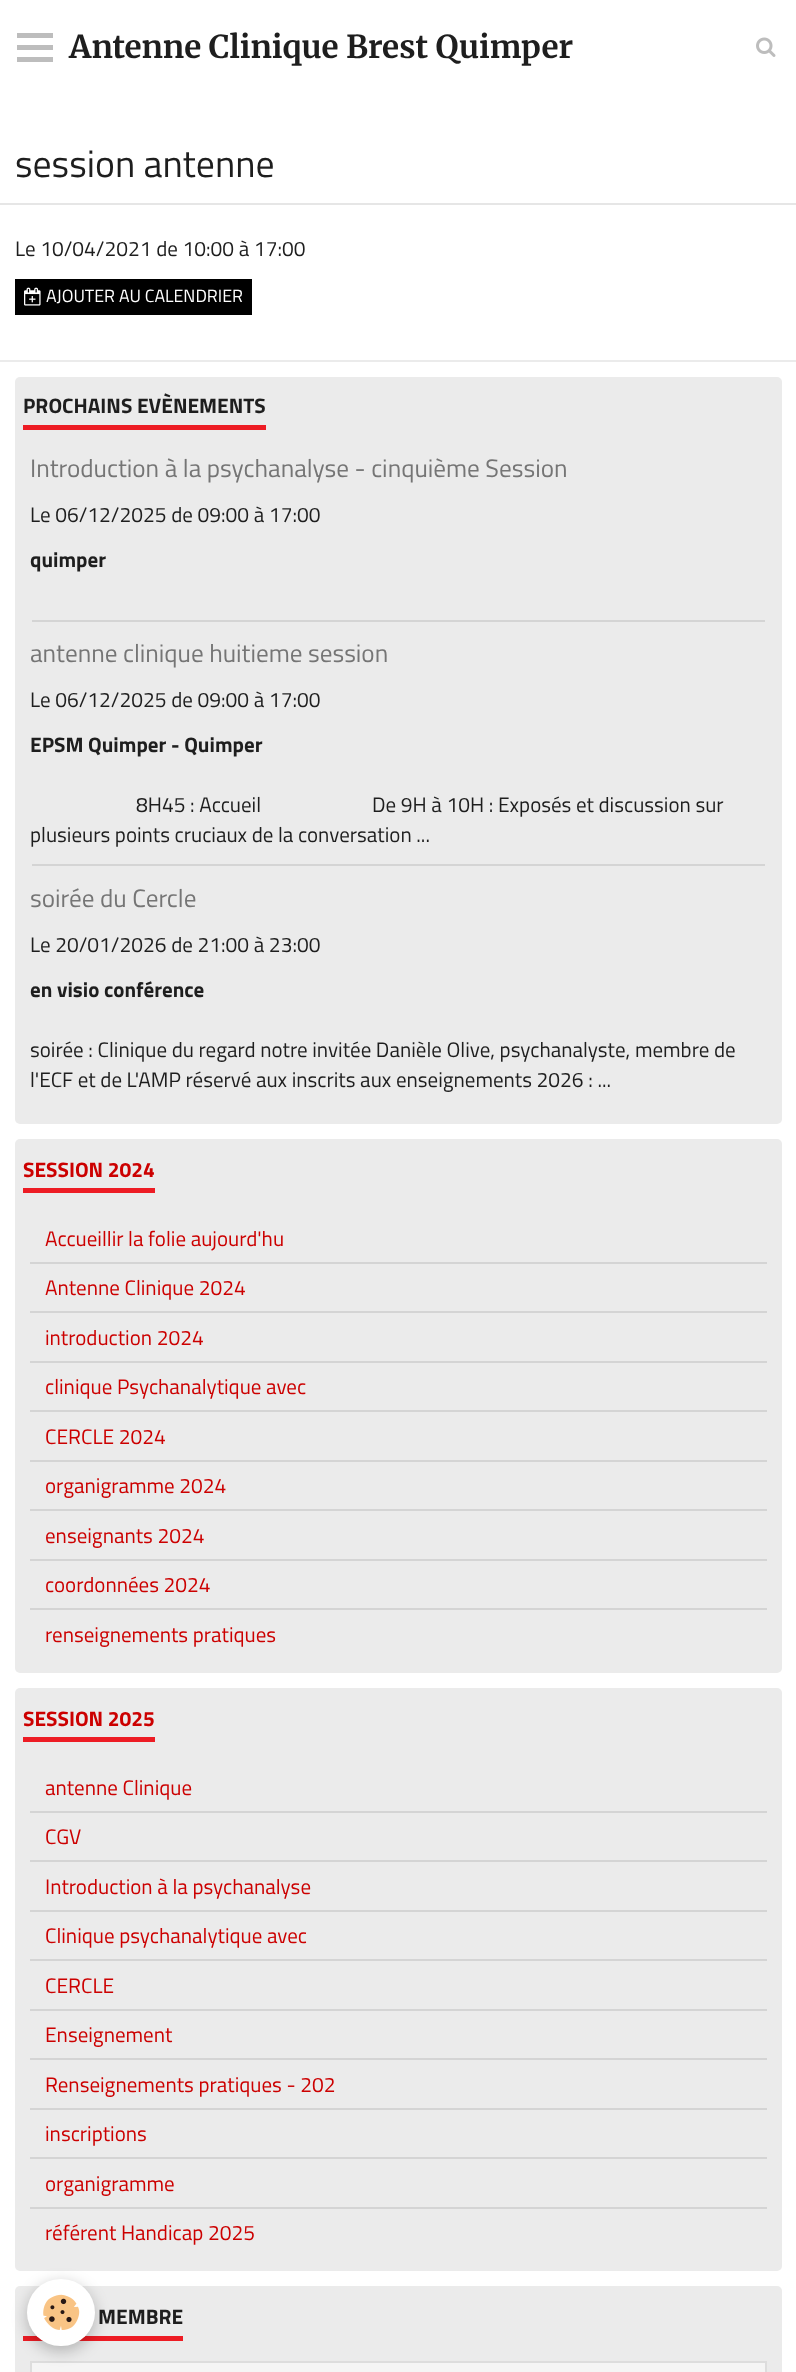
async function draw(canvas) {
	canvas.width = 796;
	canvas.height = 2372;
	const c = canvas.getContext('2d');
	c.miterLimit = 4;
	c.fontKerning = 'normal';
	async function loadImage(src) {
		const img = new Image();
		img.src = src;
		await img.decode();
		return img;
	}

	c.fillStyle = '#fff';
	c.fillRect(0, 0, 796, 2372);
	for (const [x, y, w, h, color] of [
		[17, 45, 36, 5, '#bdbdbd'],
		[17, 33, 36, 5, '#bdbdbd'],
		[17, 57, 36, 5, '#bdbdbd'],
	]) {
		c.fillStyle = color;
		c.fillRect(x, y, w, h);
	}
	c.font = 'bold 31.5px Merriweather';
	c.fillStyle = '#1e1e1e';
	c.fillText('Antenne Clinique Brest Quimper', 69, 58);
	c.drawImage(await loadImage('img1.png'), 756, 37, 20, 20);
	c.fillStyle = '#e6e6e6';
	c.fillRect(0, 203, 796, 2);
	c.font = '37.75px Titillium Web';
	c.fillStyle = '#1e1e1e';
	c.fillText('session antenne', 15, 177);
	c.font = '21px Titillium Web';
	c.fillText('Le 10/04/2021 de 10:00 à 17:00', 15, 256);
	c.fillStyle = '#000';
	c.fillRect(15, 279, 237, 36);
	c.drawImage(await loadImage('img2.png'), 24, 287, 17, 19);
	c.font = '17.8px Titillium Web';
	c.fillStyle = '#fff';
	c.fillText('AJOUTER AU CALENDRIER', 46, 302);
	c.fillStyle = '#ebebeb';
	c.fillRect(0, 360, 796, 2);
	c.beginPath();
	c.roundRect(15, 377, 767, 747, 5);
	c.fill();
	c.font = 'bold 21px Titillium Web';
	c.fillStyle = '#1e1e1e';
	c.fillText('PROCHAINS EVÈNEMENTS', 23, 413);
	c.fillStyle = '#ed1c24';
	c.fillRect(23, 425, 243, 5);
	c.fillStyle = '#d4d4d4';
	c.fillRect(32, 620, 733, 2);
	c.font = '25.2px Titillium Web';
	c.fillStyle = '#757575';
	c.fillText('Introduction à la psychanalyse - cinquième Session', 30, 477);
	c.font = '21px Titillium Web';
	c.fillStyle = '#1e1e1e';
	c.fillText('Le 06/12/2025 de 09:00 à 17:00', 30, 522);
	c.font = 'bold 21px Titillium Web';
	c.fillText('quimper', 30, 567);
	c.fillStyle = '#d4d4d4';
	c.fillRect(32, 864, 733, 2);
	c.font = '25.2px Titillium Web';
	c.fillStyle = '#757575';
	c.fillText('antenne clinique huitieme session', 30, 662);
	c.font = '21px Titillium Web';
	c.fillStyle = '#1e1e1e';
	c.fillText('Le 06/12/2025 de 09:00 à 17:00', 30, 707);
	c.font = 'bold 21px Titillium Web';
	c.fillText('EPSM Quimper - Quimper', 30, 752);
	c.font = '21px Titillium Web';
	for (const [text, x, y] of [
		['8H45 : Accueil', 136, 812],
		['De 9H à 10H : Exposés et discussion sur', 372, 812],
		['plusieurs points cruciaux de la conversation ...', 30, 842],
	]) {
		c.fillText(text, x, y);
	}
	c.font = '25.2px Titillium Web';
	c.fillStyle = '#757575';
	c.fillText('soirée du Cercle', 30, 907);
	c.font = '21px Titillium Web';
	c.fillStyle = '#1e1e1e';
	c.fillText('Le 20/01/2026 de 21:00 à 23:00', 30, 952);
	c.font = 'bold 21px Titillium Web';
	c.fillText('en visio conférence', 30, 997);
	c.font = '21px Titillium Web';
	c.fillText('soirée : Clinique du regard notre invitée Danièle Olive, psychanalyste, membre de', 30, 1057);
	c.fillText('l\'ECF et de L\'AMP réservé aux inscrits aux enseignements 2026 : ...', 30, 1087);
	c.fillStyle = '#ebebeb';
	c.beginPath();
	c.roundRect(15, 1139, 767, 534, 5);
	c.fill();
	c.font = 'bold 21px Titillium Web';
	c.fillStyle = '#c00';
	c.fillText('SESSION 2024', 23, 1177);
	c.fillStyle = '#ed1c24';
	c.fillRect(23, 1188, 132, 5);
	c.fillStyle = '#d4d4d4';
	c.fillRect(30, 1262, 737, 2);
	c.font = '21px Titillium Web';
	c.fillStyle = '#c00';
	c.fillText('Accueillir la folie aujourd\'hu', 45, 1246);
	c.fillStyle = '#d4d4d4';
	c.fillRect(30, 1311, 737, 2);
	c.fillStyle = '#c00';
	c.fillText('Antenne Clinique 2024', 45, 1295);
	c.fillStyle = '#d4d4d4';
	c.fillRect(30, 1361, 737, 2);
	c.fillStyle = '#c00';
	c.fillText('introduction 2024', 45, 1345);
	c.fillStyle = '#d4d4d4';
	c.fillRect(30, 1410, 737, 2);
	c.fillStyle = '#c00';
	c.fillText('clinique Psychanalytique avec', 45, 1394);
	c.fillStyle = '#d4d4d4';
	c.fillRect(30, 1460, 737, 2);
	c.fillStyle = '#c00';
	c.fillText('CERCLE 2024', 45, 1444);
	c.fillStyle = '#d4d4d4';
	c.fillRect(30, 1509, 737, 2);
	c.fillStyle = '#c00';
	c.fillText('organigramme 2024', 45, 1493);
	c.fillStyle = '#d4d4d4';
	c.fillRect(30, 1559, 737, 2);
	c.fillStyle = '#c00';
	c.fillText('enseignants 2024', 45, 1543);
	c.fillStyle = '#d4d4d4';
	c.fillRect(30, 1608, 737, 2);
	c.fillStyle = '#c00';
	c.fillText('coordonnées 2024', 45, 1592);
	c.fillText('renseignements pratiques', 45, 1642);
	c.fillStyle = '#ebebeb';
	c.beginPath();
	c.roundRect(15, 1688, 767, 583, 5);
	c.fill();
	c.font = 'bold 21px Titillium Web';
	c.fillStyle = '#c00';
	c.fillText('SESSION 2025', 23, 1726);
	c.fillStyle = '#ed1c24';
	c.fillRect(23, 1737, 132, 5);
	c.fillStyle = '#d4d4d4';
	c.fillRect(30, 1811, 737, 2);
	c.font = '21px Titillium Web';
	c.fillStyle = '#c00';
	c.fillText('antenne Clinique', 45, 1795);
	c.fillStyle = '#d4d4d4';
	c.fillRect(30, 1860, 737, 2);
	c.fillStyle = '#c00';
	c.fillText('CGV', 45, 1844);
	c.fillStyle = '#d4d4d4';
	c.fillRect(30, 1910, 737, 2);
	c.fillStyle = '#c00';
	c.fillText('Introduction à la psychanalyse', 45, 1894);
	c.fillStyle = '#d4d4d4';
	c.fillRect(30, 1959, 737, 2);
	c.fillStyle = '#c00';
	c.fillText('Clinique psychanalytique avec', 45, 1943);
	c.fillStyle = '#d4d4d4';
	c.fillRect(30, 2009, 737, 2);
	c.fillStyle = '#c00';
	c.fillText('CERCLE', 45, 1993);
	c.fillStyle = '#d4d4d4';
	c.fillRect(30, 2058, 737, 2);
	c.fillStyle = '#c00';
	c.fillText('Enseignement', 45, 2042);
	c.fillStyle = '#d4d4d4';
	c.fillRect(30, 2108, 737, 2);
	c.fillStyle = '#c00';
	c.fillText('Renseignements pratiques - 202', 45, 2092);
	c.fillStyle = '#d4d4d4';
	c.fillRect(30, 2157, 737, 2);
	c.fillStyle = '#c00';
	c.fillText('inscriptions', 45, 2141);
	c.fillStyle = '#d4d4d4';
	c.fillRect(30, 2207, 737, 2);
	c.fillStyle = '#c00';
	c.fillText('organigramme', 45, 2191);
	c.fillText('référent Handicap 2025', 45, 2240);
	c.fillStyle = '#ebebeb';
	c.beginPath();
	c.roundRect(15, 2286, 767, 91, 5);
	c.fill();
	c.font = 'bold 21px Titillium Web';
	c.fillStyle = '#1e1e1e';
	c.fillText('MEMBRE', 98, 2324);
	c.fillStyle = '#ed1c24';
	c.fillRect(23, 2336, 160, 5);
	c.fillStyle = '#f5f5f5';
	c.beginPath();
	c.rect(31, 2362, 735, 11);
	c.fill();
	c.strokeStyle = '#ddd';
	c.lineWidth = 2;
	c.stroke();
	c.fillStyle = '#0000003d';
	c.filter = 'blur(7.5px)';
	c.beginPath();
	c.roundRect(27, 2283, 68, 68, 34);
	c.fill();
	c.filter = 'none';
	c.fillStyle = '#fff';
	c.beginPath();
	c.roundRect(27, 2279, 68, 67, 33.5);
	c.fill();
	c.drawImage(await loadImage('img3.png'), 43, 2294, 37, 36);
}

draw(document.querySelector('canvas'));
